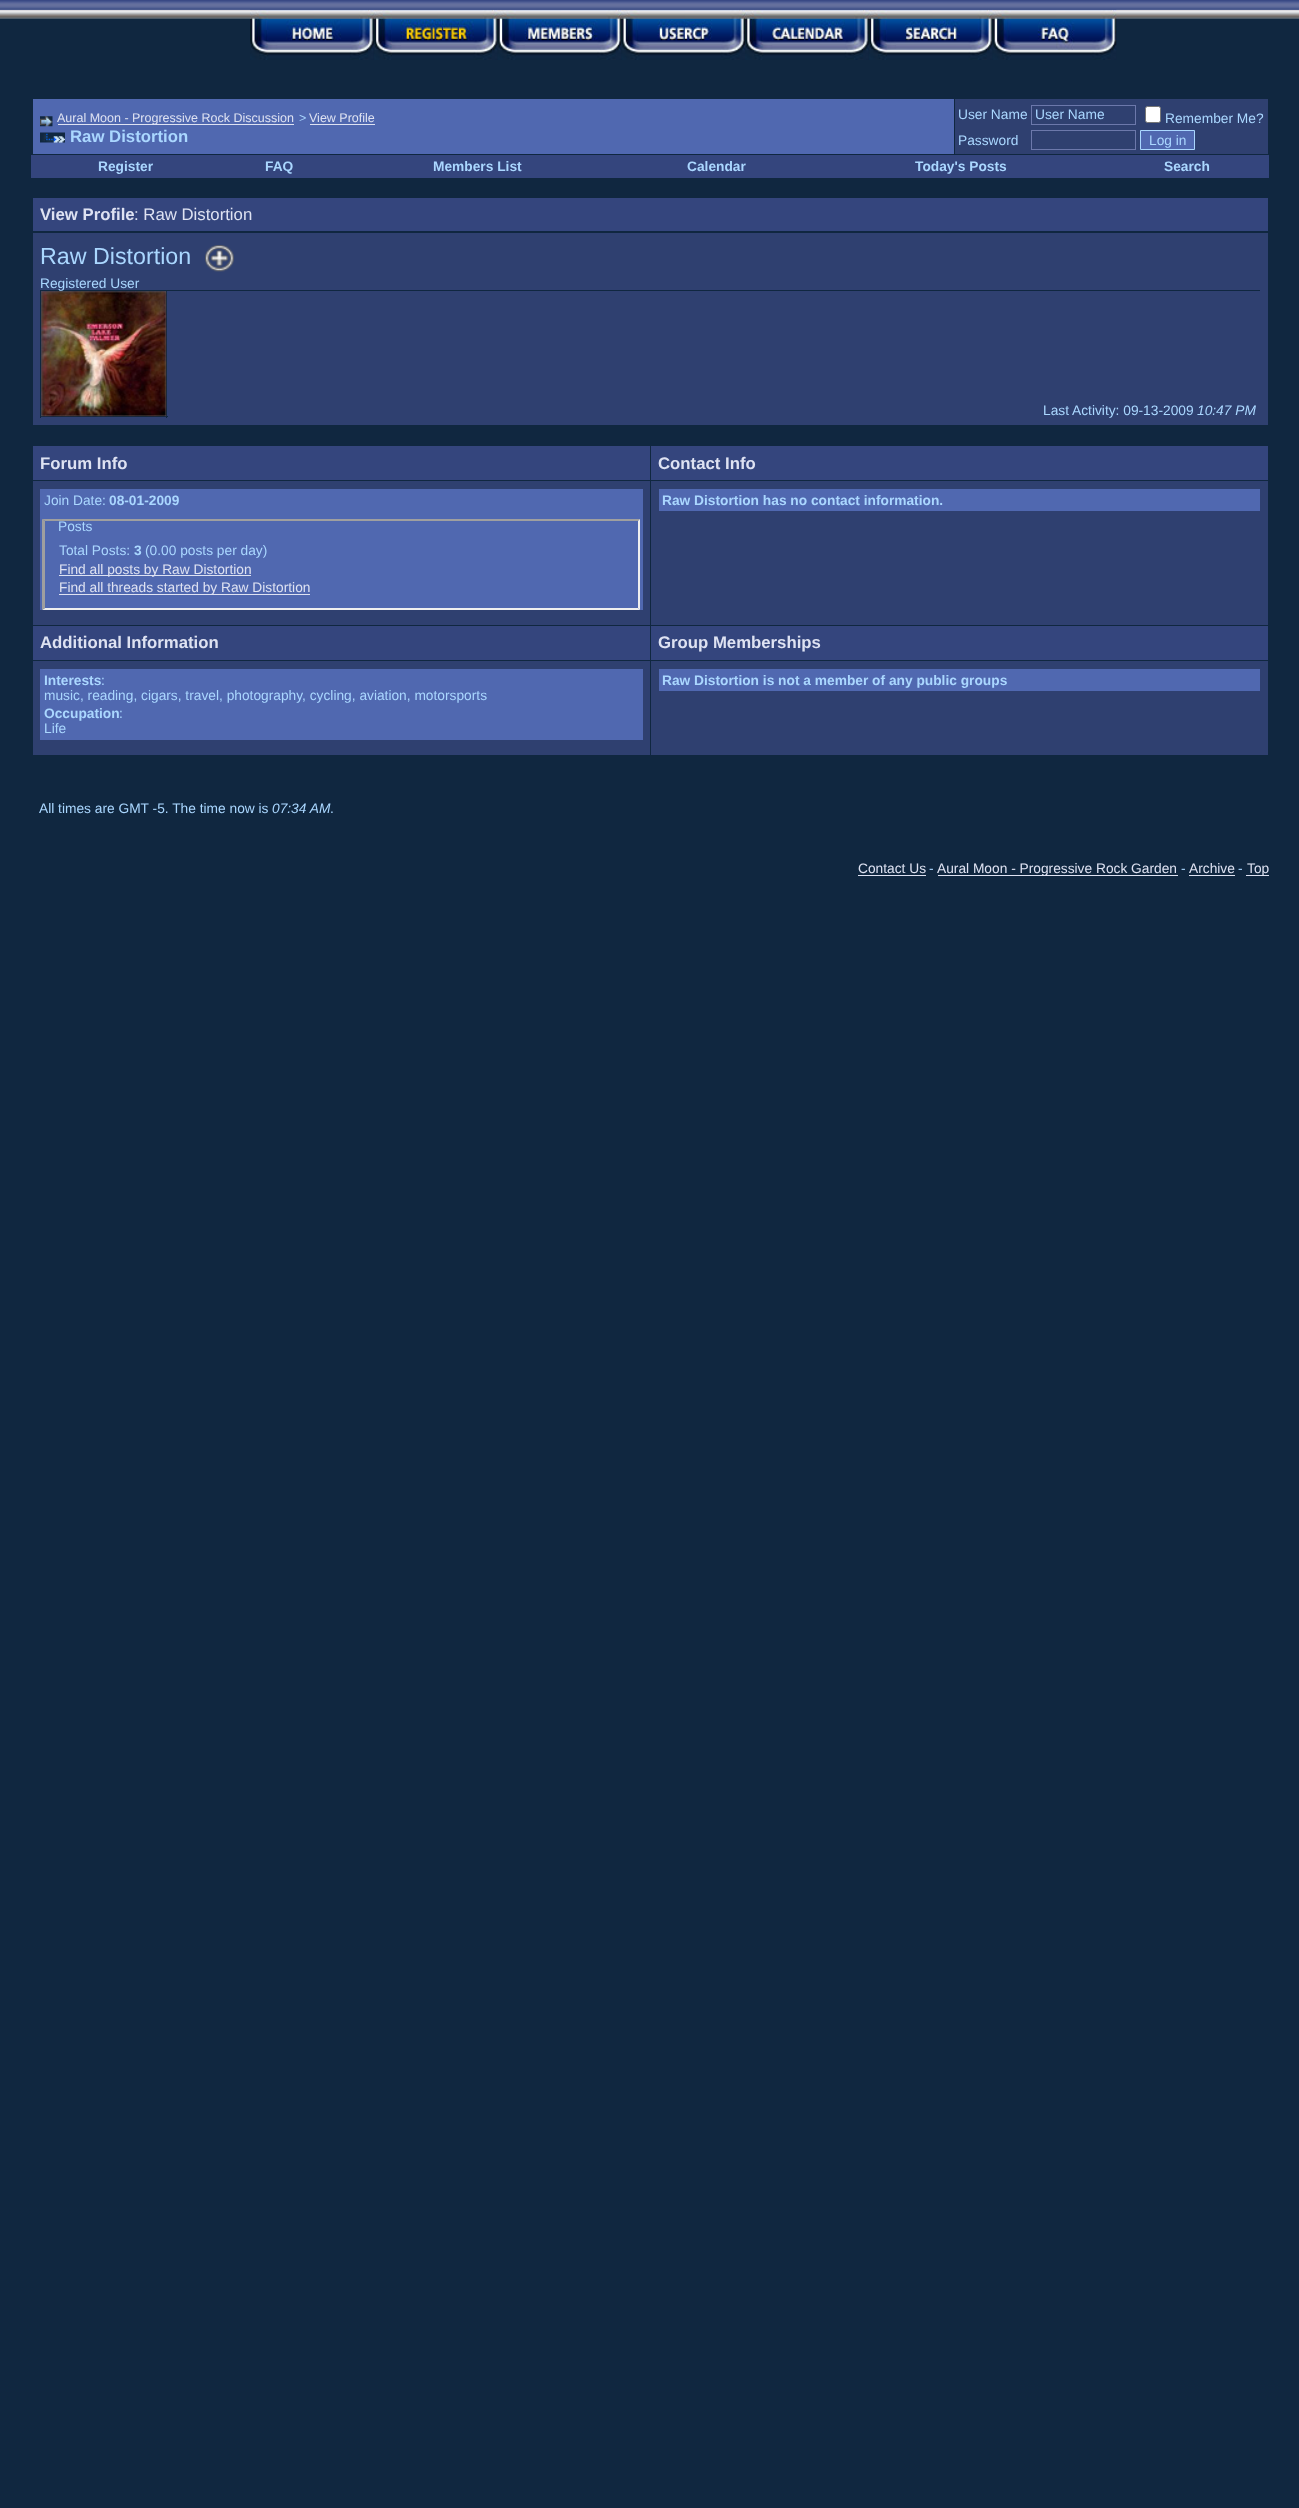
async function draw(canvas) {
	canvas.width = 1299;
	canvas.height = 2508;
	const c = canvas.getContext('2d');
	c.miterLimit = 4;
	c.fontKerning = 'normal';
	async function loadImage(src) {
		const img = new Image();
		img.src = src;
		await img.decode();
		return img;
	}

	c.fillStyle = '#102740';
	c.fillRect(0, 0, 1299, 2508);
	c.drawImage(await loadImage('img1.png'), 0, 0, 1299, 19);
	c.drawImage(await loadImage('img2.png'), 250, 9, 124, 51);
	c.drawImage(await loadImage('img3.png'), 373, 9, 125, 51);
	c.drawImage(await loadImage('img4.png'), 497, 9, 125, 51);
	c.drawImage(await loadImage('img5.png'), 621, 9, 124, 51);
	c.drawImage(await loadImage('img6.png'), 745, 9, 124, 51);
	c.drawImage(await loadImage('img7.png'), 868, 9, 125, 51);
	c.drawImage(await loadImage('img8.png'), 992, 9, 125, 51);
	c.fillStyle = '#5068b0';
	c.fillRect(33, 99, 921, 55);
	c.drawImage(await loadImage('img9.png'), 40, 116, 13, 11);
	c.fillStyle = '#dee2f2';
	c.fillRect(58, 124, 236, 1);
	c.font = '12.5px Liberation Sans';
	c.fillText('Aural Moon - Progressive Rock Discussion', 57, 122);
	c.fillStyle = '#aad7ff';
	c.fillText('>', 299, 122);
	c.fillStyle = '#dee2f2';
	c.fillText('View Profile', 309, 122);
	c.fillRect(310, 124, 65, 1);
	c.drawImage(await loadImage('img10.png'), 40, 132, 25, 11);
	c.font = 'bold 16.75px Liberation Sans';
	c.fillStyle = '#aad7ff';
	c.fillText('Raw Distortion', 70, 142);
	c.fillStyle = '#2f4070';
	c.fillRect(955, 99, 313, 55);
	c.font = '13.75px Liberation Sans';
	c.fillStyle = '#aad7ff';
	c.fillText('User Name', 958, 119);
	c.strokeStyle = '#6c78ab';
	c.strokeRect(1031.5, 105.5, 104, 19);
	c.fillText('User Name', 1035, 119);
	c.fillStyle = '#fff';
	c.beginPath();
	c.roundRect(1145.5, 106.5, 15, 16, 2);
	c.fill();
	c.strokeStyle = '#767676';
	c.stroke();
	c.fillStyle = '#aad7ff';
	c.fillText('Remember Me?', 1165, 123);
	c.fillText('Password', 958, 145);
	c.strokeStyle = '#6c78ab';
	c.strokeRect(1031.5, 130.5, 104, 19);
	c.fillStyle = '#5068b0';
	c.beginPath();
	c.rect(1140.5, 130.5, 54, 19);
	c.fill();
	c.strokeStyle = '#aad7ff';
	c.stroke();
	c.fillStyle = '#aad7ff';
	c.fillText('Log in', 1149, 145);
	c.fillStyle = '#34457d';
	c.fillRect(31, 155, 1238, 23);
	c.font = 'bold 13.75px Liberation Sans';
	c.fillStyle = '#aad7ff';
	for (const [text, x, y] of [
		['Register', 98, 171],
		['FAQ', 265, 171],
		['Members List', 433, 171],
		['Calendar', 687, 171],
		['Today\'s Posts', 915, 171],
		['Search', 1164, 171],
	]) {
		c.fillText(text, x, y);
	}
	c.fillStyle = '#34457d';
	c.fillRect(33, 198, 1235, 33);
	c.font = 'bold 16.75px Liberation Sans';
	c.fillStyle = '#dee2f2';
	c.fillText('View Profile', 40, 220);
	c.font = '16.75px Liberation Sans';
	c.fillText(': Raw Distortion', 134, 220);
	c.fillStyle = '#2f4070';
	c.fillRect(33, 233, 1235, 192);
	c.fillStyle = '#102740';
	c.fillRect(40, 290, 1220, 1);
	c.font = '23.25px Liberation Sans';
	c.fillStyle = '#aad7ff';
	c.fillText('Raw Distortion', 40, 264);
	c.drawImage(await loadImage('img11.png'), 205, 245, 29, 27);
	c.font = '13.75px Liberation Sans';
	c.fillText('Registered User', 40, 288);
	for (const [x, y, w, h, color] of [
		[166, 291, 1, 127, '#102740'],
		[40, 416, 128, 1, '#102740'],
		[40, 291, 1, 127, '#102740'],
	]) {
		c.fillStyle = color;
		c.fillRect(x, y, w, h);
	}
	c.drawImage(await loadImage('img12.png'), 41, 291, 126, 126);
	c.fillStyle = '#aad7ff';
	c.fillText('Last Activity: 09-13-2009', 1043, 415);
	c.font = 'italic 13.75px Liberation Sans';
	c.fillText('10:47 PM', 1197, 415);
	c.fillStyle = '#34457d';
	c.fillRect(33, 446, 617, 34);
	c.font = 'bold 16.75px Liberation Sans';
	c.fillStyle = '#dee2f2';
	c.fillText('Forum Info', 40, 469);
	c.fillStyle = '#34457d';
	c.fillRect(651, 446, 617, 34);
	c.fillStyle = '#dee2f2';
	c.fillText('Contact Info', 658, 469);
	c.fillStyle = '#2f4070';
	c.fillRect(33, 481, 617, 144);
	c.fillStyle = '#5068b0';
	c.fillRect(40, 489, 603, 121);
	c.font = '13.75px Liberation Sans';
	c.fillStyle = '#aad7ff';
	c.fillText('Join Date:', 44, 505);
	c.font = 'bold 13.75px Liberation Sans';
	c.fillText('08-01-2009', 109, 505);
	c.fillStyle = '#9f9f9f';
	c.beginPath();
	c.moveTo(42, 519);
	c.lineTo(640, 519);
	c.lineTo(638, 521);
	c.lineTo(45, 521);
	c.closePath();
	c.fill();
	c.fillStyle = '#efefef';
	c.beginPath();
	c.moveTo(640, 519);
	c.lineTo(640, 610);
	c.lineTo(638, 608);
	c.lineTo(638, 521);
	c.closePath();
	c.fill();
	c.beginPath();
	c.moveTo(640, 610);
	c.lineTo(42, 610);
	c.lineTo(45, 608);
	c.lineTo(638, 608);
	c.closePath();
	c.fill();
	c.fillStyle = '#9f9f9f';
	c.beginPath();
	c.moveTo(42, 610);
	c.lineTo(42, 519);
	c.lineTo(45, 521);
	c.lineTo(45, 608);
	c.closePath();
	c.fill();
	c.font = '13.75px Liberation Sans';
	c.fillStyle = '#aad7ff';
	c.fillText('Posts', 58, 531);
	c.fillText('Total Posts:', 59, 555);
	c.font = 'bold 13.75px Liberation Sans';
	c.fillText('3', 134, 555);
	c.font = '13.75px Liberation Sans';
	c.fillText('(0.00 posts per day)', 145, 555);
	c.fillStyle = '#dee2f2';
	c.fillRect(59, 575, 192, 1);
	c.fillText('Find all posts by Raw Distortion', 59, 574);
	c.fillRect(59, 594, 251, 1);
	c.fillText('Find all threads started by Raw Distortion', 59, 592);
	c.fillStyle = '#2f4070';
	c.fillRect(651, 481, 617, 144);
	c.fillStyle = '#5068b0';
	c.fillRect(659, 489, 601, 22);
	c.font = 'bold 13.75px Liberation Sans';
	c.fillStyle = '#aad7ff';
	c.fillText('Raw Distortion has no contact information.', 662, 505);
	c.fillStyle = '#34457d';
	c.fillRect(33, 626, 617, 34);
	c.font = 'bold 16.75px Liberation Sans';
	c.fillStyle = '#dee2f2';
	c.fillText('Additional Information', 40, 648);
	c.fillStyle = '#34457d';
	c.fillRect(651, 626, 617, 34);
	c.fillStyle = '#dee2f2';
	c.fillText('Group Memberships', 658, 648);
	c.fillStyle = '#2f4070';
	c.fillRect(33, 661, 617, 94);
	c.fillStyle = '#5068b0';
	c.fillRect(40, 669, 603, 71);
	c.font = 'bold 13.75px Liberation Sans';
	c.fillStyle = '#aad7ff';
	c.fillText('Interests', 44, 685);
	c.font = '13.75px Liberation Sans';
	c.fillText(':', 101, 685);
	c.fillText('music, reading, cigars, travel, photography, cycling, aviation, motorsports', 44, 700);
	c.font = 'bold 13.75px Liberation Sans';
	c.fillText('Occupation', 44, 718);
	c.font = '13.75px Liberation Sans';
	c.fillText(':', 119, 718);
	c.fillText('Life', 44, 733);
	c.fillStyle = '#2f4070';
	c.fillRect(651, 661, 617, 94);
	c.fillStyle = '#5068b0';
	c.fillRect(659, 669, 601, 22);
	c.font = 'bold 13.75px Liberation Sans';
	c.fillStyle = '#aad7ff';
	c.fillText('Raw Distortion is not a member of any public groups', 662, 685);
	c.font = '13.75px Liberation Sans';
	c.fillText('All times are GMT -5. The time now is', 39, 813);
	c.font = 'italic 13.75px Liberation Sans';
	c.fillText('07:34 AM', 272, 813);
	c.font = '13.75px Liberation Sans';
	c.fillText('.', 330, 813);
	c.fillStyle = '#dee2f2';
	c.fillText('Contact Us', 858, 873);
	c.fillRect(858, 875, 68, 1);
	c.fillStyle = '#aad7ff';
	c.fillText('-', 929, 873);
	c.fillStyle = '#dee2f2';
	c.fillRect(938, 875, 240, 1);
	c.fillText('Aural Moon - Progressive Rock Garden', 937, 873);
	c.fillStyle = '#aad7ff';
	c.fillText('-', 1181, 873);
	c.fillStyle = '#dee2f2';
	c.fillText('Archive', 1189, 873);
	c.fillRect(1189, 875, 46, 1);
	c.fillStyle = '#aad7ff';
	c.fillText('-', 1238, 873);
	c.fillStyle = '#dee2f2';
	c.fillRect(1246, 875, 23, 1);
	c.fillText('Top', 1247, 873);
}

draw(document.querySelector('canvas'));
